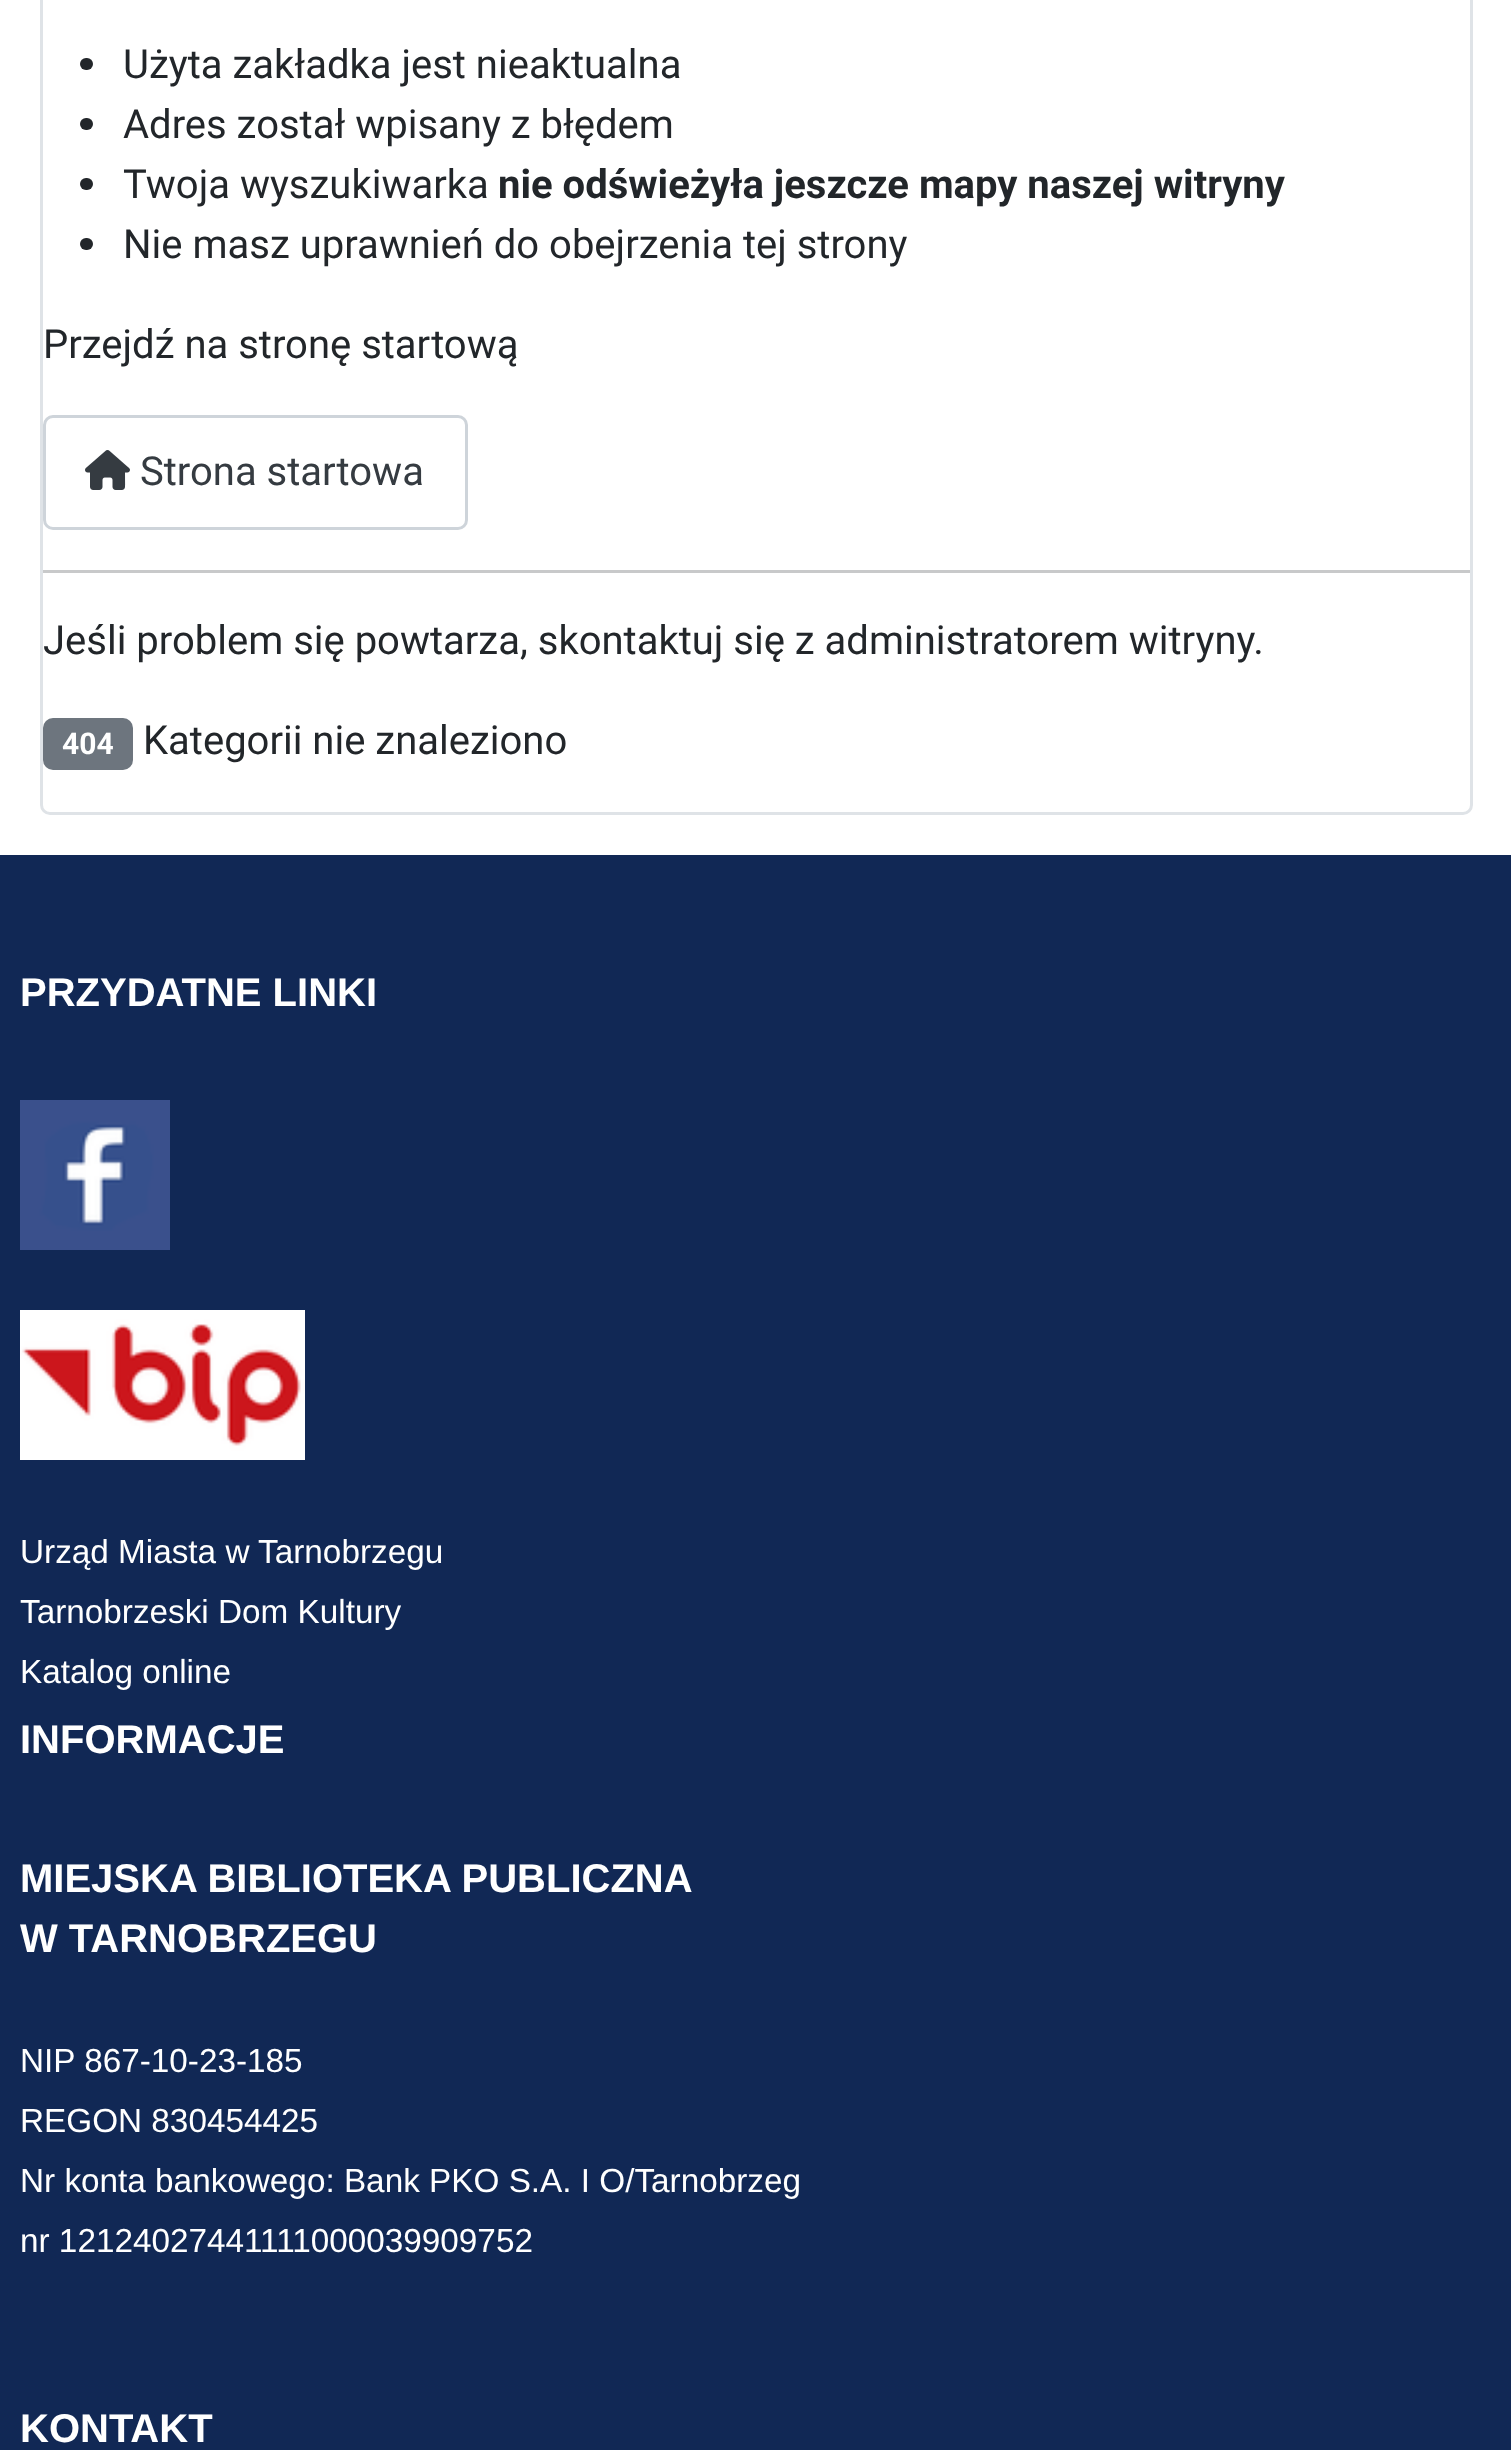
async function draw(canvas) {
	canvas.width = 1511;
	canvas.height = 2450;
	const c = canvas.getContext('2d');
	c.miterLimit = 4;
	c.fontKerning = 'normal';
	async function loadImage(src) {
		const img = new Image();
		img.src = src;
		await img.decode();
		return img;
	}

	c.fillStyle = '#fff';
	c.fillRect(0, 0, 1511, 2450);
	c.beginPath();
	c.roundRect(41.5, -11.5, 1430, 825, 8.5);
	c.strokeStyle = '#dfe3e7';
	c.lineWidth = 3;
	c.stroke();
	c.fillStyle = '#22262a';
	c.beginPath();
	c.roundRect(80, 58, 13, 12, 6);
	c.fill();
	c.font = '40px Roboto';
	c.fillText('Użyta zakładka jest nieaktualna', 123, 78);
	c.beginPath();
	c.roundRect(80, 118, 13, 12, 6);
	c.fill();
	c.fillText('Adres został wpisany z błędem', 123, 138);
	c.beginPath();
	c.roundRect(80, 178, 13, 12, 6);
	c.fill();
	c.fillText('Twoja wyszukiwarka', 123, 198);
	c.font = 'bold 40px Roboto';
	c.fillText('nie odświeżyła jeszcze mapy naszej witryny', 498, 198);
	c.beginPath();
	c.roundRect(80, 238, 13, 12, 6);
	c.fill();
	c.font = '40px Roboto';
	c.fillText('Nie masz uprawnień do obejrzenia tej strony', 123, 258);
	c.fillText('Przejdź na stronę startową', 43, 358);
	c.beginPath();
	c.roundRect(44.5, 416.5, 422, 112, 8.5);
	c.strokeStyle = '#ced4da';
	c.stroke();
	c.drawImage(await loadImage('img1.png'), 85, 450, 45, 40);
	c.fillStyle = '#353b41';
	c.fillText('Strona startowa', 140, 485);
	c.fillStyle = '#c8c9ca';
	c.fillRect(43, 570, 1427, 3);
	c.fillStyle = '#22262a';
	c.fillText('Jeśli problem się powtarza, skontaktuj się z administratorem witryny.', 43, 654);
	c.fillStyle = '#6d757e';
	c.beginPath();
	c.roundRect(43, 718, 90, 52, 10);
	c.fill();
	c.font = 'bold 30px Roboto';
	c.fillStyle = '#fff';
	c.fillText('404', 62, 754);
	c.font = '40px Roboto';
	c.fillStyle = '#22262a';
	c.fillText('Kategorii nie znaleziono', 143, 754);
	c.fillStyle = '#112855';
	c.fillRect(0, 855, 1511, 1595);
	c.font = 'bold 40px Liberation Sans';
	c.fillStyle = '#fff';
	c.fillText('PRZYDATNE LINKI', 20, 1006);
	c.drawImage(await loadImage('img2.png'), 20, 1100, 150, 150);
	c.drawImage(await loadImage('img3.png'), 20, 1310, 285, 150);
	c.font = '33.3px Liberation Sans';
	for (const [text, x, y] of [
		['Urząd Miasta w Tarnobrzegu', 20, 1563],
		['Tarnobrzeski Dom Kultury', 20, 1623],
		['Katalog online', 20, 1683],
	]) {
		c.fillText(text, x, y);
	}
	c.font = 'bold 40px Liberation Sans';
	for (const [text, x, y] of [
		['INFORMACJE', 20, 1753],
		['MIEJSKA BIBLIOTEKA PUBLICZNA', 20, 1892],
		['W TARNOBRZEGU', 20, 1952],
	]) {
		c.fillText(text, x, y);
	}
	c.font = '33.3px Liberation Sans';
	for (const [text, x, y] of [
		['NIP 867-10-23-185', 20, 2072],
		['REGON 830454425', 20, 2132],
		['Nr konta bankowego: Bank PKO S.A. I O/Tarnobrzeg', 20, 2192],
		['nr 12124027441111000039909752', 20, 2252],
	]) {
		c.fillText(text, x, y);
	}
	c.font = 'bold 40px Liberation Sans';
	c.fillText('KONTAKT', 20, 2442);
}

draw(document.querySelector('canvas'));
